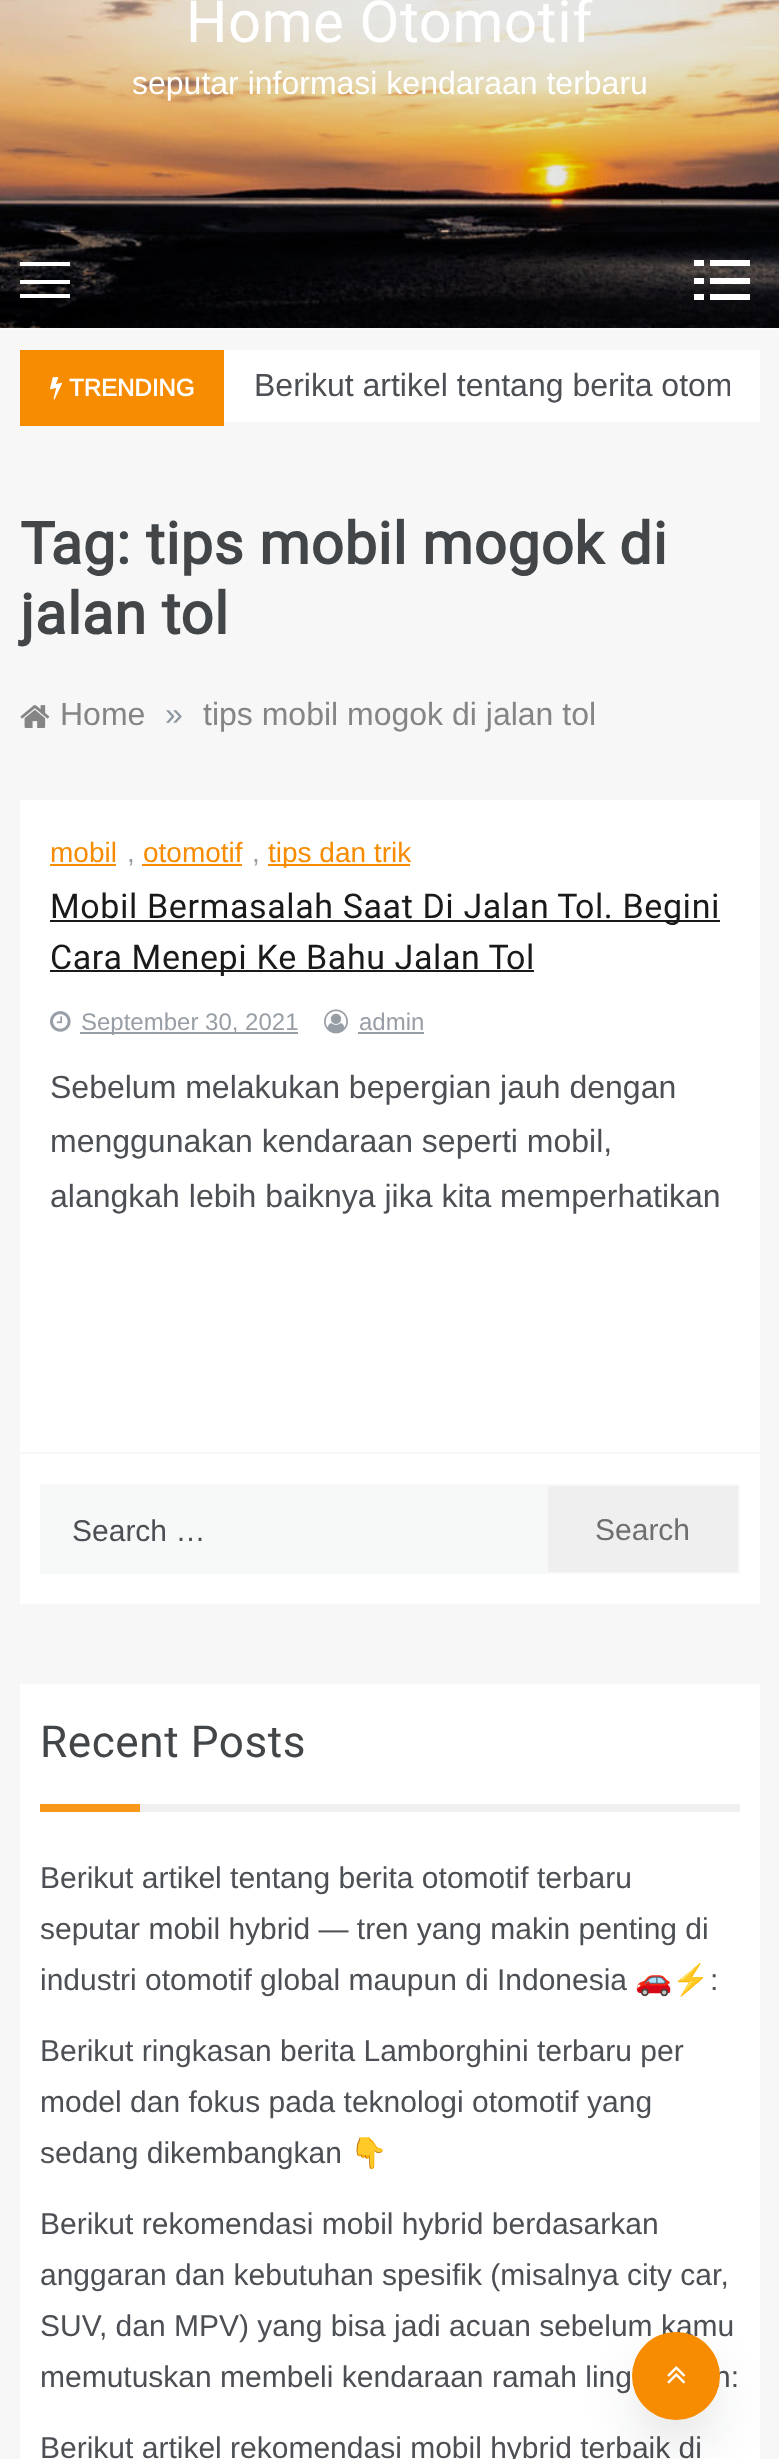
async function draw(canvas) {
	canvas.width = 779;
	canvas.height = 2459;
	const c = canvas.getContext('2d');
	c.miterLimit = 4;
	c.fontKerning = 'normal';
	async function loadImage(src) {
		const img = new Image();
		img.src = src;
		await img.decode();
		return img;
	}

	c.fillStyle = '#f7f7f7';
	c.fillRect(0, 0, 779, 2459);
	c.drawImage(await loadImage('img1.png'), 0, 0, 779, 328);
	c.fillStyle = '#fafafa';
	c.fillRect(0, 328, 779, 2);
	c.letterSpacing = '0.6px';
	c.font = '58px Heebo';
	c.fillStyle = '#fff';
	c.fillText('Home Otomotif', 186, 42);
	c.letterSpacing = '0px';
	c.font = '32px Arimo';
	c.fillText('seputar informasi kendaraan terbaru', 132, 94);
	for (const [x, y, w, h, color] of [
		[0, 232, 779, 96, '#0000006b'],
		[20, 262, 50, 4, '#fff'],
		[20, 280, 50, 4, '#fff'],
		[20, 294, 50, 4, '#fff'],
		[710, 260, 40, 6, '#fff'],
		[694, 260, 10, 6, '#fff'],
		[710, 278, 40, 6, '#fff'],
		[694, 278, 10, 6, '#fff'],
		[710, 294, 40, 6, '#fff'],
		[694, 294, 10, 6, '#fff'],
		[224, 350, 536, 72, '#fff'],
		[20, 350, 204, 76, '#f88c01'],
	]) {
		c.fillStyle = color;
		c.fillRect(x, y, w, h);
	}
	c.drawImage(await loadImage('img2.png'), 50, 377, 12, 23);
	c.font = 'bold 24px Arimo';
	c.fillStyle = '#fff';
	c.fillText('TRENDING', 69, 396);
	c.save();
	c.beginPath();
	c.rect(224, 350, 506, 72);
	c.clip();
	c.font = '32px Arimo';
	c.fillStyle = '#4c4f53';
	c.fillText('Berikut artikel tentang berita otom', 254, 396);
	c.restore();
	c.letterSpacing = '0.6px';
	c.font = 'bold 58px Heebo';
	c.fillStyle = '#434648';
	c.fillText('Tag: tips mobil mogok di', 20, 564);
	c.fillText('jalan tol', 20, 634);
	c.drawImage(await loadImage('img3.png'), 20, 705, 30, 23);
	c.letterSpacing = '0px';
	c.font = '32px Arimo';
	c.fillStyle = '#858585';
	c.fillText('Home', 60, 725);
	c.fillStyle = '#8d97a1';
	c.fillText('»', 165, 725);
	c.fillStyle = '#858585';
	c.fillText('tips mobil mogok di jalan tol', 203, 725);
	c.fillStyle = '#fff';
	c.fillRect(20, 800, 740, 652);
	c.font = '28px Arimo';
	c.fillStyle = '#f88c01';
	c.fillText('mobil', 50, 862);
	c.fillStyle = '#989ea6';
	c.fillText(',', 127, 862);
	c.fillStyle = '#f88c01';
	c.fillRect(50, 864, 66, 2);
	c.fillRect(142, 864, 100, 2);
	c.fillText('otomotif', 143, 862);
	c.fillStyle = '#989ea6';
	c.fillText(',', 252, 862);
	c.fillStyle = '#f88c01';
	c.fillRect(268, 864, 142, 2);
	c.fillText('tips dan trik', 268, 862);
	c.fillStyle = '#1a1a1a';
	c.fillRect(50, 920, 670, 2);
	c.letterSpacing = '0.6px';
	c.font = '34px Heebo';
	c.fillText('Mobil Bermasalah Saat Di Jalan Tol. Begini', 50, 918);
	c.fillRect(50, 970, 484, 2);
	c.fillText('Cara Menepi Ke Bahu Jalan Tol', 50, 969);
	c.drawImage(await loadImage('img4.png'), 50, 1011, 21, 21);
	c.fillStyle = '#989ea6';
	c.fillRect(80, 1032, 218, 2);
	c.letterSpacing = '0px';
	c.font = '24px Arimo';
	c.fillText('September 30, 2021', 81, 1030);
	c.drawImage(await loadImage('img5.png'), 324, 1009, 24, 25);
	c.fillText('admin', 359, 1030);
	c.fillRect(358, 1032, 66, 2);
	c.font = '32px Arimo';
	c.fillStyle = '#4c4f53';
	for (const [text, x, y] of [
		['Sebelum melakukan bepergian jauh dengan', 50, 1098],
		['menggunakan kendaraan seperti mobil,', 50, 1152],
		['alangkah lebih baiknya jika kita memperhatikan', 50, 1207],
	]) {
		c.fillText(text, x, y);
	}
	c.fillStyle = '#fff';
	c.fillRect(20, 1454, 740, 150);
	c.fillStyle = '#f7f8f8';
	c.fillRect(40, 1484, 506, 90);
	c.font = '30px Arimo';
	c.fillStyle = '#4c4f53';
	c.fillText('Search …', 72, 1541);
	c.fillStyle = '#efefef';
	c.beginPath();
	c.rect(547, 1485, 192, 88);
	c.fill();
	c.strokeStyle = '#f7f8f8';
	c.lineWidth = 2;
	c.stroke();
	c.fillStyle = '#6f6f6f';
	c.fillText('Search', 595, 1540);
	c.fillStyle = '#fff';
	c.fillRect(20, 1684, 740, 775);
	c.letterSpacing = '0.6px';
	c.font = '44px Heebo';
	c.fillStyle = '#434648';
	c.fillText('Recent Posts', 40, 1757);
	c.fillStyle = '#f9981a';
	c.fillRect(40, 1804, 100, 8);
	c.fillStyle = '#f0f0f0';
	c.fillRect(140, 1804, 600, 8);
	c.letterSpacing = '0px';
	c.font = '30px Arimo';
	c.fillStyle = '#4c4f53';
	for (const [text, x, y] of [
		['Berikut artikel tentang berita otomotif terbaru', 40, 1888],
		['seputar mobil hybrid — tren yang makin penting di', 40, 1939],
		['industri otomotif global maupun di Indonesia', 40, 1990],
	]) {
		c.fillText(text, x, y);
	}
	c.font = '30px Noto Color Emoji';
	c.fillText('🚗⚡', 635, 1990);
	c.font = '30px Arimo';
	for (const [text, x, y] of [
		[':', 710, 1990],
		['Berikut ringkasan berita Lamborghini terbaru per', 40, 2061],
		['model dan fokus pada teknologi otomotif yang', 40, 2112],
		['sedang dikembangkan', 40, 2163],
	]) {
		c.fillText(text, x, y);
	}
	c.font = '30px Noto Color Emoji';
	c.fillText('👇', 350, 2163);
	c.font = '30px Liberation Sans';
	c.fillText('￼', 396, 2163);
	c.font = '30px Arimo';
	for (const [text, x, y] of [
		['Berikut rekomendasi mobil hybrid berdasarkan', 40, 2234],
		['anggaran dan kebutuhan spesifik (misalnya city car,', 40, 2285],
		['SUV, dan MPV) yang bisa jadi acuan sebelum kamu', 40, 2336],
		['memutuskan membeli kendaraan ramah ling', 40, 2387],
		['n:', 714, 2387],
		['Berikut artikel rekomendasi mobil hybrid terbaik di', 40, 2458],
	]) {
		c.fillText(text, x, y);
	}
	c.fillStyle = '#0e111426';
	c.filter = 'blur(28px)';
	c.beginPath();
	c.roundRect(640, 2368, 72, 72, 36);
	c.fill();
	c.filter = 'none';
	c.fillStyle = '#f88c01';
	c.beginPath();
	c.arc(676, 2376, 44, 0, 2 * Math.PI);
	c.fill();
	c.drawImage(await loadImage('img6.png'), 667, 2366, 19, 18);
}

draw(document.querySelector('canvas'));
